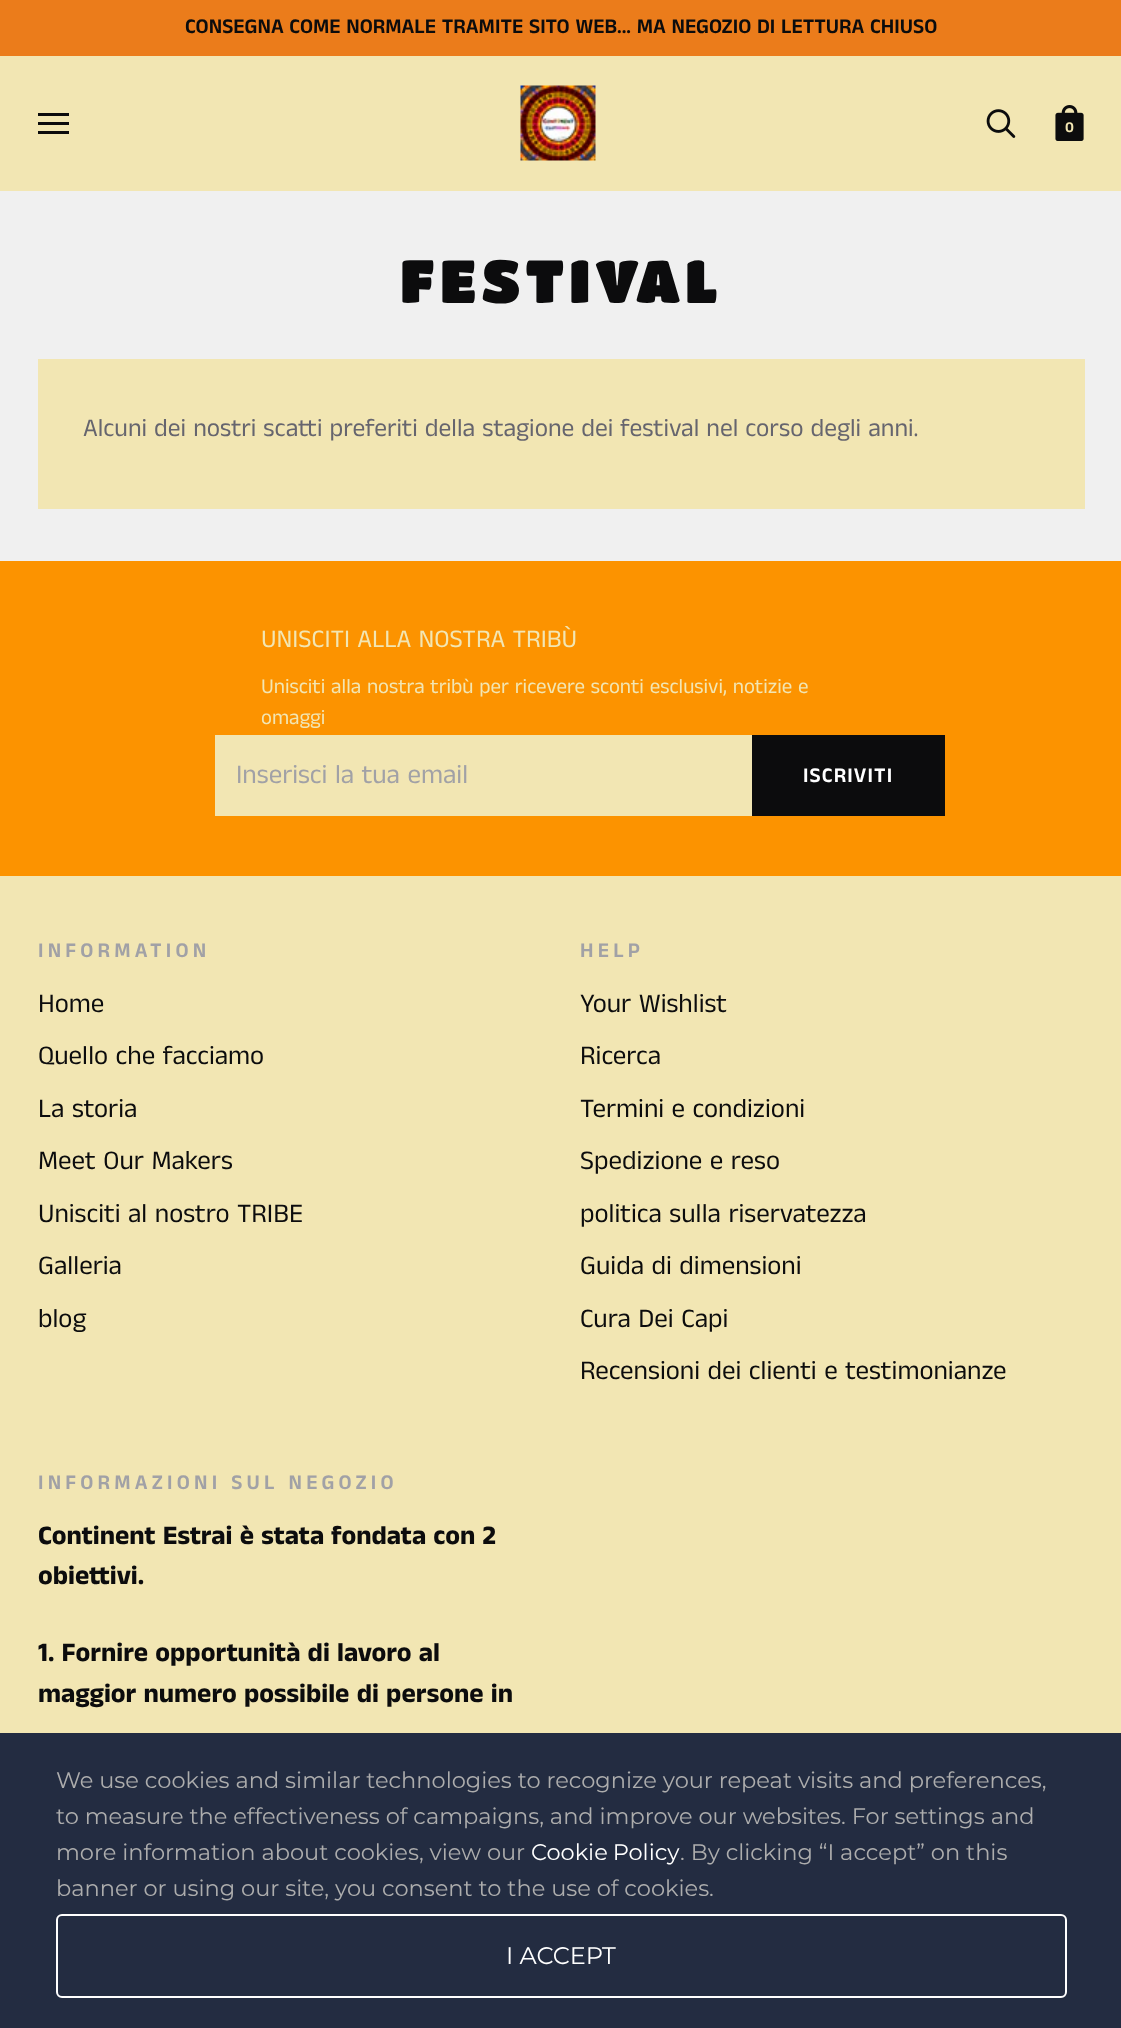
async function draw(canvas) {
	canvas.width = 1121;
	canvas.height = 2028;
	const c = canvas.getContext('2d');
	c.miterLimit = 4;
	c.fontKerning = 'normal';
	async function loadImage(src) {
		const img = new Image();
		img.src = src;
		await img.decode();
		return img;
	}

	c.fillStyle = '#f2e6b3';
	c.fillRect(0, 0, 1121, 2028);
	c.fillStyle = '#eb7c1b';
	c.fillRect(0, 0, 1121, 56);
	c.font = '600 21px Anek Tamil';
	c.fillStyle = '#0c0c0d';
	c.fillText('CONSEGNA COME NORMALE TRAMITE SITO WEB... MA NEGOZIO DI LETTURA CHIUSO', 185, 33);
	for (const [x, y, w, h, color] of [
		[38, 113, 31, 3, '#0c0c0d'],
		[38, 122, 31, 3, '#0c0c0d'],
		[38, 131, 31, 3, '#0c0c0d'],
	]) {
		c.fillStyle = color;
		c.fillRect(x, y, w, h);
	}
	c.drawImage(await loadImage('img1.png'), 520, 85, 76, 76);
	c.drawImage(await loadImage('img2.png'), 986, 109, 30, 29);
	c.drawImage(await loadImage('img3.png'), 1055, 105, 29, 36);
	c.font = '600 15px Anek Tamil';
	c.fillStyle = '#f2e6b3';
	c.fillText('0', 1065, 132);
	c.fillStyle = '#f0f0f0';
	c.fillRect(0, 191, 1121, 370);
	c.letterSpacing = '4.75px';
	c.font = '60px Titan One';
	c.fillStyle = '#0c0c0d';
	c.fillText('FESTIVAL', 400, 303);
	c.fillStyle = '#f2e6b3';
	c.fillRect(38, 359, 1047, 150);
	c.letterSpacing = '0px';
	c.font = '25.5px Anek Tamil';
	c.fillStyle = '#66656e';
	c.fillText('Alcuni dei nostri scatti preferiti della stagione dei festival nel corso degli anni.', 83, 436);
	c.fillStyle = '#fc9300';
	c.fillRect(0, 561, 1121, 315);
	c.fillStyle = '#f2e6b3';
	c.fillText('UNISCITI ALLA NOSTRA TRIBÙ', 261, 647);
	c.font = '21px Anek Tamil';
	c.fillText('Unisciti alla nostra tribù per ricevere sconti esclusivi, notizie e', 261, 693);
	c.fillText('omaggi', 261, 724);
	c.fillRect(215, 735, 537, 81);
	c.font = '27px Anek Tamil';
	c.fillStyle = '#a1a1a6';
	c.fillText('Inserisci la tua email', 236, 783);
	c.fillStyle = '#0c0c0d';
	c.fillRect(752, 735, 193, 81);
	c.letterSpacing = '1.1px';
	c.font = '600 21px Anek Tamil';
	c.fillStyle = '#fff';
	c.fillText('ISCRIVITI', 803, 782);
	c.letterSpacing = '4.2px';
	c.fillStyle = '#a1a1a6';
	c.fillText('INFORMATION', 38, 957);
	c.letterSpacing = '0px';
	c.font = '27px Anek Tamil';
	c.fillStyle = '#0c0c0d';
	for (const [text, x, y] of [
		['Home', 38, 1012],
		['Quello che facciamo', 38, 1064],
		['La storia', 38, 1117],
		['Meet Our Makers', 38, 1169],
		['Unisciti al nostro TRIBE', 38, 1222],
		['Galleria', 38, 1274],
		['blog', 38, 1327],
	]) {
		c.fillText(text, x, y);
	}
	c.letterSpacing = '4.2px';
	c.font = '600 21px Anek Tamil';
	c.fillStyle = '#a1a1a6';
	c.fillText('HELP', 580, 957);
	c.letterSpacing = '0px';
	c.font = '27px Anek Tamil';
	c.fillStyle = '#0c0c0d';
	for (const [text, x, y] of [
		['Your Wishlist', 580, 1012],
		['Ricerca', 580, 1064],
		['Termini e condizioni', 580, 1117],
		['Spedizione e reso', 580, 1169],
		['politica sulla riservatezza', 580, 1222],
		['Guida di dimensioni', 580, 1274],
		['Cura Dei Capi', 580, 1327],
		['Recensioni dei clienti e testimonianze', 580, 1379],
	]) {
		c.fillText(text, x, y);
	}
	c.letterSpacing = '4.2px';
	c.font = '600 21px Anek Tamil';
	c.fillStyle = '#a1a1a6';
	c.fillText('INFORMAZIONI SUL NEGOZIO', 38, 1489);
	c.letterSpacing = '0px';
	c.font = 'bold 27px Anek Tamil';
	c.fillStyle = '#0c0c0d';
	for (const [text, x, y] of [
		['Continent Estrai è stata fondata con 2', 38, 1544],
		['obiettivi.', 38, 1584],
		['1. Fornire opportunità di lavoro al', 38, 1661],
		['maggior numero possibile di persone in', 38, 1702],
	]) {
		c.fillText(text, x, y);
	}
	c.fillStyle = '#232c41';
	c.fillRect(0, 1733, 1121, 295);
	c.font = '22.5px Montserrat';
	c.fillStyle = '#adadad';
	for (const [text, x, y] of [
		['We use cookies and similar technologies to recognize your repeat visits and preferences,', 56, 1788],
		['to measure the effectiveness of campaigns, and improve our websites. For settings and', 56, 1824],
		['more information about cookies, view our', 56, 1860],
	]) {
		c.fillText(text, x, y);
	}
	c.wordSpacing = '-1px';
	c.fillStyle = '#fff';
	c.fillText('Cookie Policy', 531, 1860);
	c.wordSpacing = '0px';
	c.fillStyle = '#adadad';
	c.fillText('. By clicking “I accept” on this', 680, 1860);
	c.fillText('banner or using our site, you consent to the use of cookies.', 56, 1896);
	c.beginPath();
	c.roundRect(57, 1915, 1009, 82, 5);
	c.strokeStyle = '#fff';
	c.lineWidth = 2;
	c.stroke();
	c.font = '24px Montserrat';
	c.fillStyle = '#fff';
	c.fillText('I ACCEPT', 506, 1964);
}

draw(document.querySelector('canvas'));
